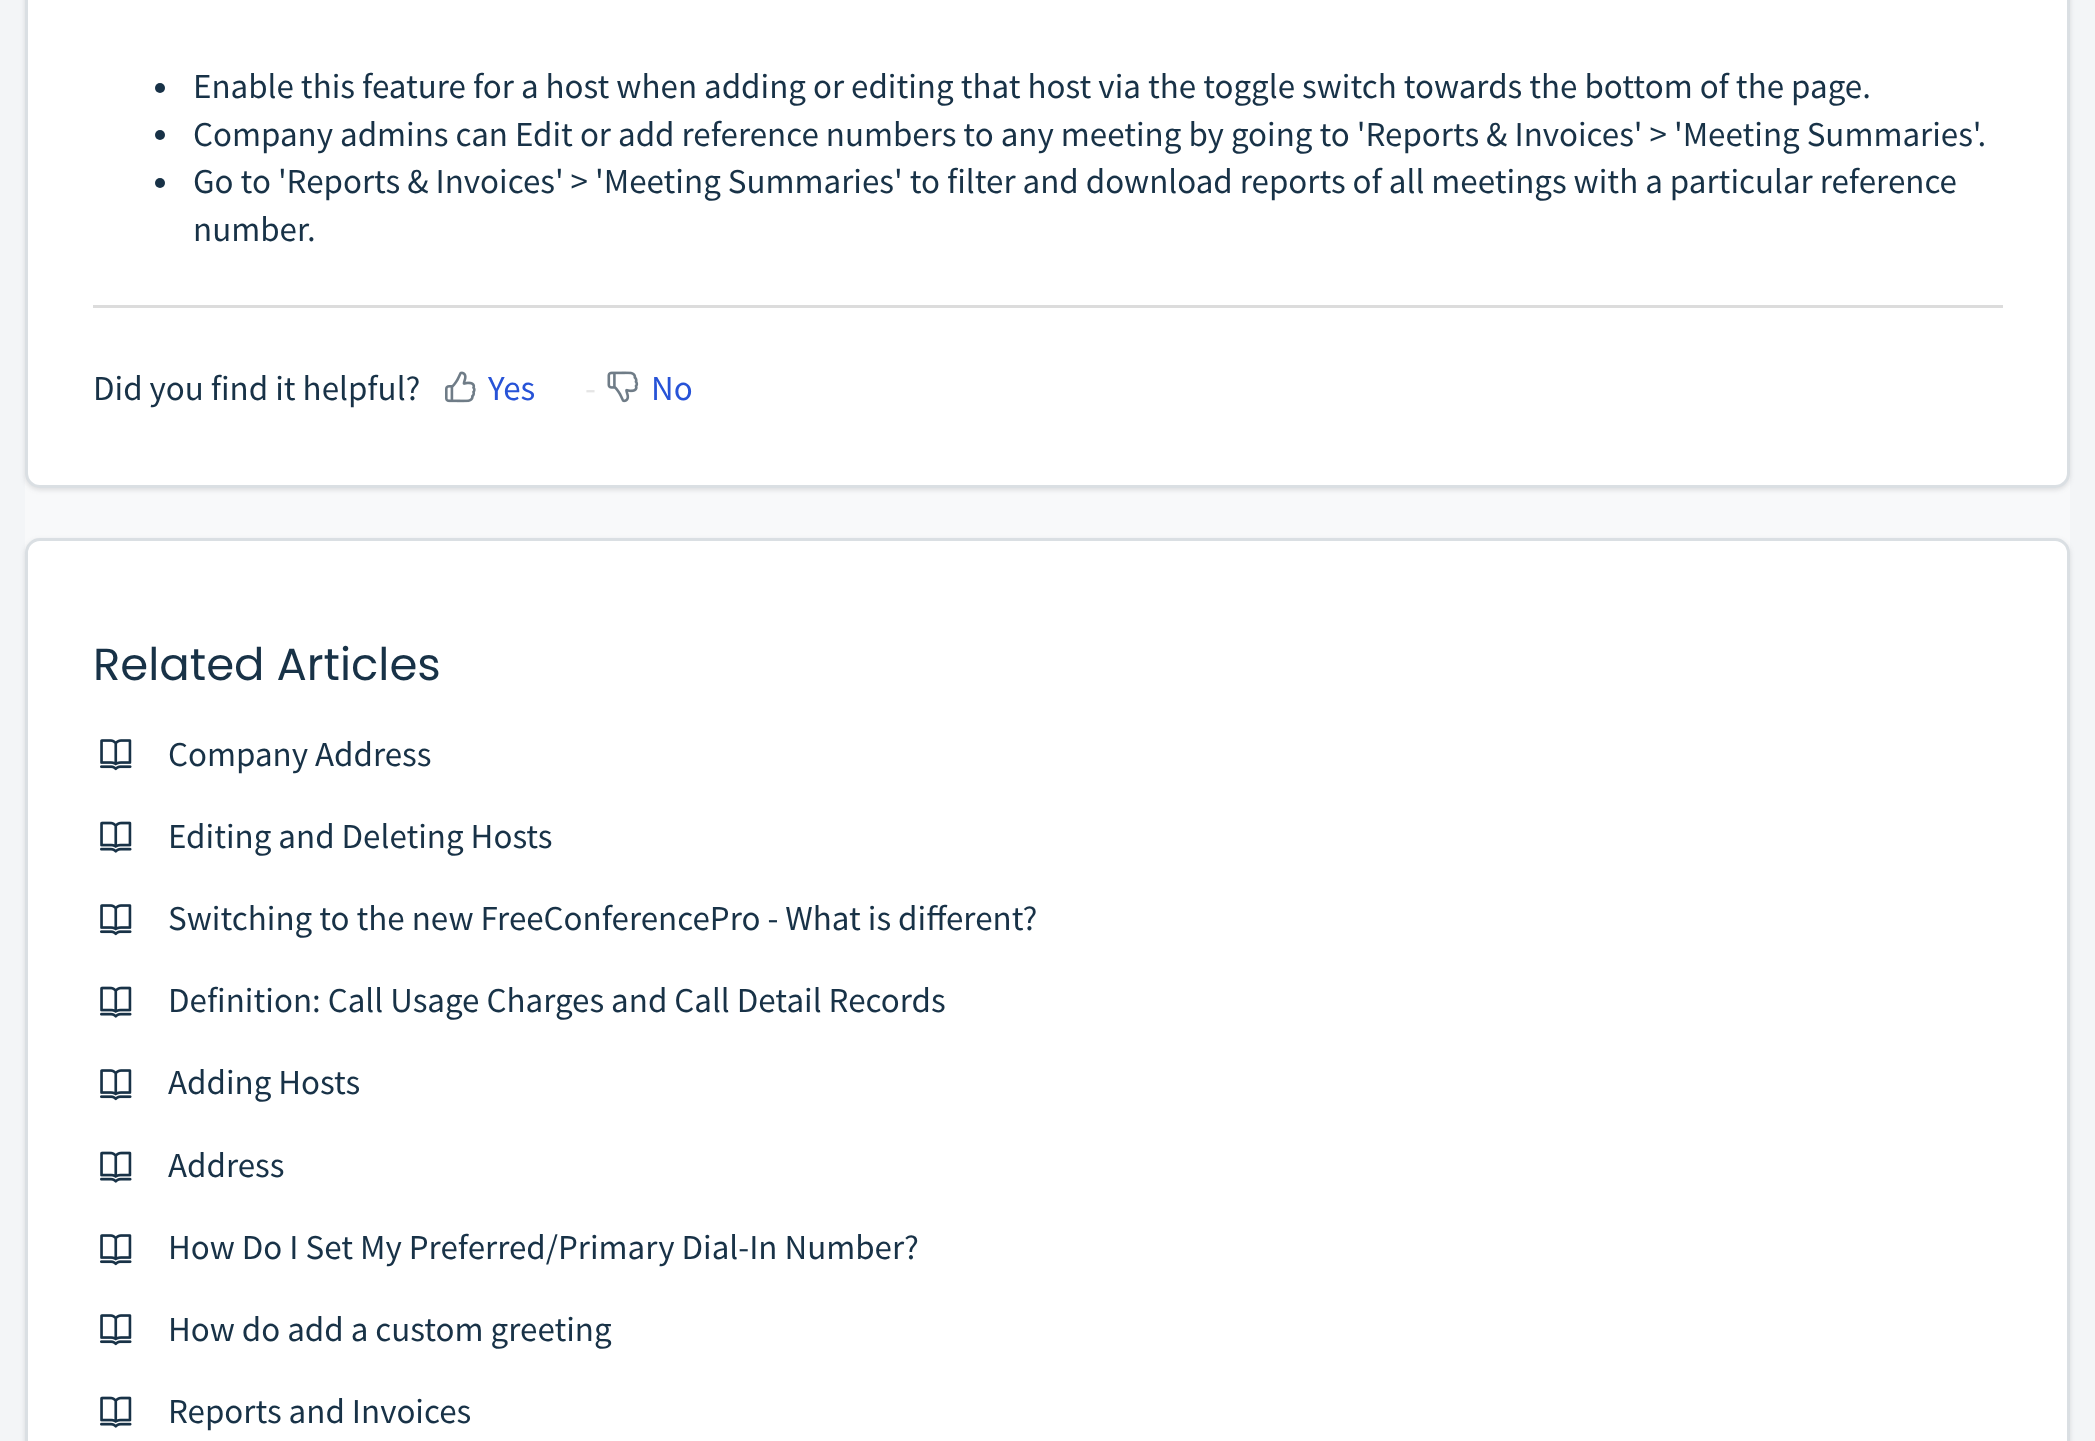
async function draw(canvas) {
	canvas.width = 2095;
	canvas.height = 1441;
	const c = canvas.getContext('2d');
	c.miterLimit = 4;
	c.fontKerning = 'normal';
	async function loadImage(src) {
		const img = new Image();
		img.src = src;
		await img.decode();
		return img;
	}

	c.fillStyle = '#f3f5f7';
	c.fillRect(0, 0, 2095, 1441);
	c.fillStyle = '#f8f9fa';
	c.fillRect(25, 473, 2045, 80);
	c.fillStyle = '#3f3f4426';
	c.filter = 'blur(2.5px)';
	c.beginPath();
	c.roundRect(25, -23, 2045, 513, 15);
	c.fill();
	c.filter = 'none';
	c.fillStyle = '#fff';
	c.beginPath();
	c.roundRect(26.5, -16.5, 2042, 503, 13.5);
	c.fill();
	c.strokeStyle = '#dadfe3';
	c.lineWidth = 3;
	c.stroke();
	c.fillStyle = '#183247';
	c.beginPath();
	c.arc(160, 88, 5, 0, 2 * Math.PI);
	c.fill();
	c.font = '35px Source Sans Pro';
	c.fillText('Enable this feature for a host when adding or editing that host via the toggle switch towards the bottom of the page.', 193, 98);
	c.beginPath();
	c.arc(160, 135, 5, 0, 2 * Math.PI);
	c.fill();
	c.fillText('Company admins can Edit or add reference numbers to any meeting by going to \'Reports & Invoices\' > \'Meeting Summaries\'.', 193, 146);
	c.beginPath();
	c.arc(160, 183, 5, 0, 2 * Math.PI);
	c.fill();
	c.fillText('Go to \'Reports & Invoices\' > \'Meeting Summaries\' to filter and download reports of all meetings with a particular reference', 193, 193);
	c.fillText('number.', 193, 241);
	c.fillStyle = '#dcdcdc';
	c.fillRect(93, 305, 1910, 3);
	c.fillStyle = '#183247';
	c.fillText('Did you find it helpful?', 93, 400);
	c.drawImage(await loadImage('img1.png'), 445, 371, 31, 32);
	c.fillStyle = '#2753d7';
	c.fillText('Yes', 488, 400);
	c.fillStyle = '#e5e5e5';
	c.fillText('-', 585, 400);
	c.drawImage(await loadImage('img2.png'), 607, 371, 32, 32);
	c.fillStyle = '#2753d7';
	c.fillText('No', 651, 400);
	c.fillStyle = '#3f3f4426';
	c.filter = 'blur(2.5px)';
	c.beginPath();
	c.roundRect(25, 540, 2045, 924, 15);
	c.fill();
	c.filter = 'none';
	c.fillStyle = '#fff';
	c.beginPath();
	c.roundRect(26.5, 539.5, 2042, 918, 13.5);
	c.fill();
	c.stroke();
	c.font = '45px Poppins';
	c.fillStyle = '#183247';
	c.fillText('Related Articles', 93, 680);
	c.drawImage(await loadImage('img3.png'), 100, 739, 32, 32);
	c.font = '35px Source Sans Pro';
	c.fillText('Company Address', 168, 766);
	c.drawImage(await loadImage('img4.png'), 100, 821, 32, 32);
	c.fillText('Editing and Deleting Hosts', 168, 848);
	c.drawImage(await loadImage('img3.png'), 100, 904, 32, 32);
	c.fillText('Switching to the new FreeConferencePro - What is different?', 168, 930);
	c.drawImage(await loadImage('img4.png'), 100, 986, 32, 32);
	c.fillText('Definition: Call Usage Charges and Call Detail Records', 168, 1012);
	c.drawImage(await loadImage('img3.png'), 100, 1069, 32, 32);
	c.fillText('Adding Hosts', 168, 1094);
	c.drawImage(await loadImage('img4.png'), 100, 1151, 32, 32);
	c.fillText('Address', 168, 1177);
	c.drawImage(await loadImage('img3.png'), 100, 1234, 32, 32);
	c.fillText('How Do I Set My Preferred/Primary Dial-In Number?', 168, 1259);
	c.drawImage(await loadImage('img3.png'), 100, 1314, 32, 32);
	c.fillText('How do add a custom greeting', 168, 1341);
	c.drawImage(await loadImage('img4.png'), 100, 1396, 32, 32);
	c.fillText('Reports and Invoices', 168, 1423);
}

draw(document.querySelector('canvas'));
